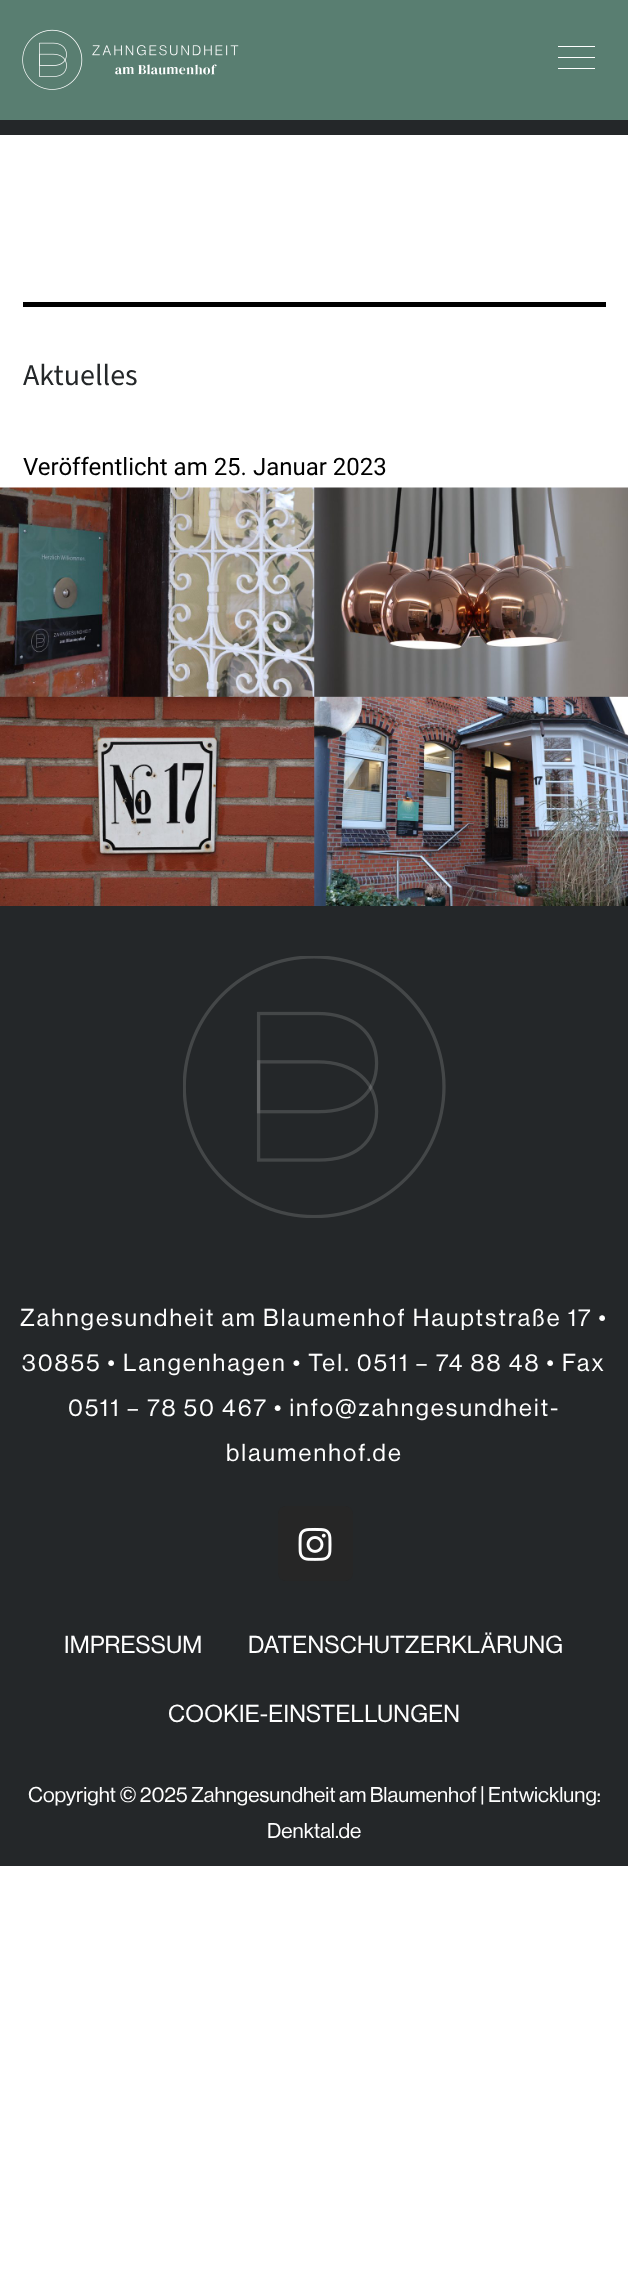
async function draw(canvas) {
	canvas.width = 628;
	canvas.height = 2292;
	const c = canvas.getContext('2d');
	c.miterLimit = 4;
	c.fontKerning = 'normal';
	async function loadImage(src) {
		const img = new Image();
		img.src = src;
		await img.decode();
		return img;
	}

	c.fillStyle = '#fff';
	c.fillRect(0, 0, 628, 2292);
	c.fillStyle = '#597e71';
	c.fillRect(0, 0, 628, 120);
	c.fillStyle = '#242729';
	c.fillRect(0, 120, 628, 15);
	c.drawImage(await loadImage('img1.png'), 22, 29, 217, 61);
	for (const [x, y, w, h, color] of [
		[558, 46, 37, 1, '#fff'],
		[558, 57, 37, 1, '#fff'],
		[558, 68, 37, 1, '#fff'],
		[23, 302, 583, 5, '#000'],
	]) {
		c.fillStyle = color;
		c.fillRect(x, y, w, h);
	}
	c.font = '30px Source Sans Pro';
	c.fillStyle = '#242729';
	c.fillText('Aktuelles', 23, 385);
	c.font = '24px Roboto';
	c.fillStyle = '#000';
	c.fillText('Veröffentlicht am 25. Januar 2023', 23, 475);
	c.drawImage(await loadImage('img2.png'), 0, 487, 628, 419);
	c.fillStyle = '#242729';
	c.fillRect(0, 906, 628, 960);
	c.drawImage(await loadImage('img3.png'), 183, 956, 263, 262);
	c.letterSpacing = '2.15px';
	c.font = '24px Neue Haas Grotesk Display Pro';
	c.fillStyle = '#fff';
	for (const [text, x, y] of [
		['Zahngesundheit am Blaumenhof Hauptstraße 17 •', 20, 1326],
		['30855 • Langenhagen • Tel. 0511 – 74 88 48 • Fax', 22, 1371],
		['0511 – 78 50 467 • info@zahngesundheit-', 68, 1416],
		['blaumenhof.de', 226, 1461],
	]) {
		c.fillText(text, x, y);
	}
	c.fillStyle = '#262626';
	c.beginPath();
	c.roundRect(278, 1506, 75, 75, 8);
	c.fill();
	c.drawImage(await loadImage('img4.png'), 298, 1527, 34, 34);
	c.letterSpacing = '0.25px';
	c.fillStyle = '#fff';
	for (const [text, x, y] of [
		['IMPRESSUM', 64, 1653],
		['DATENSCHUTZERKLÄRUNG', 248, 1653],
		['COOKIE-EINSTELLUNGEN', 168, 1722],
	]) {
		c.fillText(text, x, y);
	}
	c.letterSpacing = '0px';
	c.font = '21px Neue Haas Grotesk Display Pro';
	c.fillText('Copyright © 2025 Zahngesundheit am Blaumenhof | Entwicklung:', 28, 1802);
	c.fillText('Denktal.de', 267, 1838);
}

draw(document.querySelector('canvas'));
